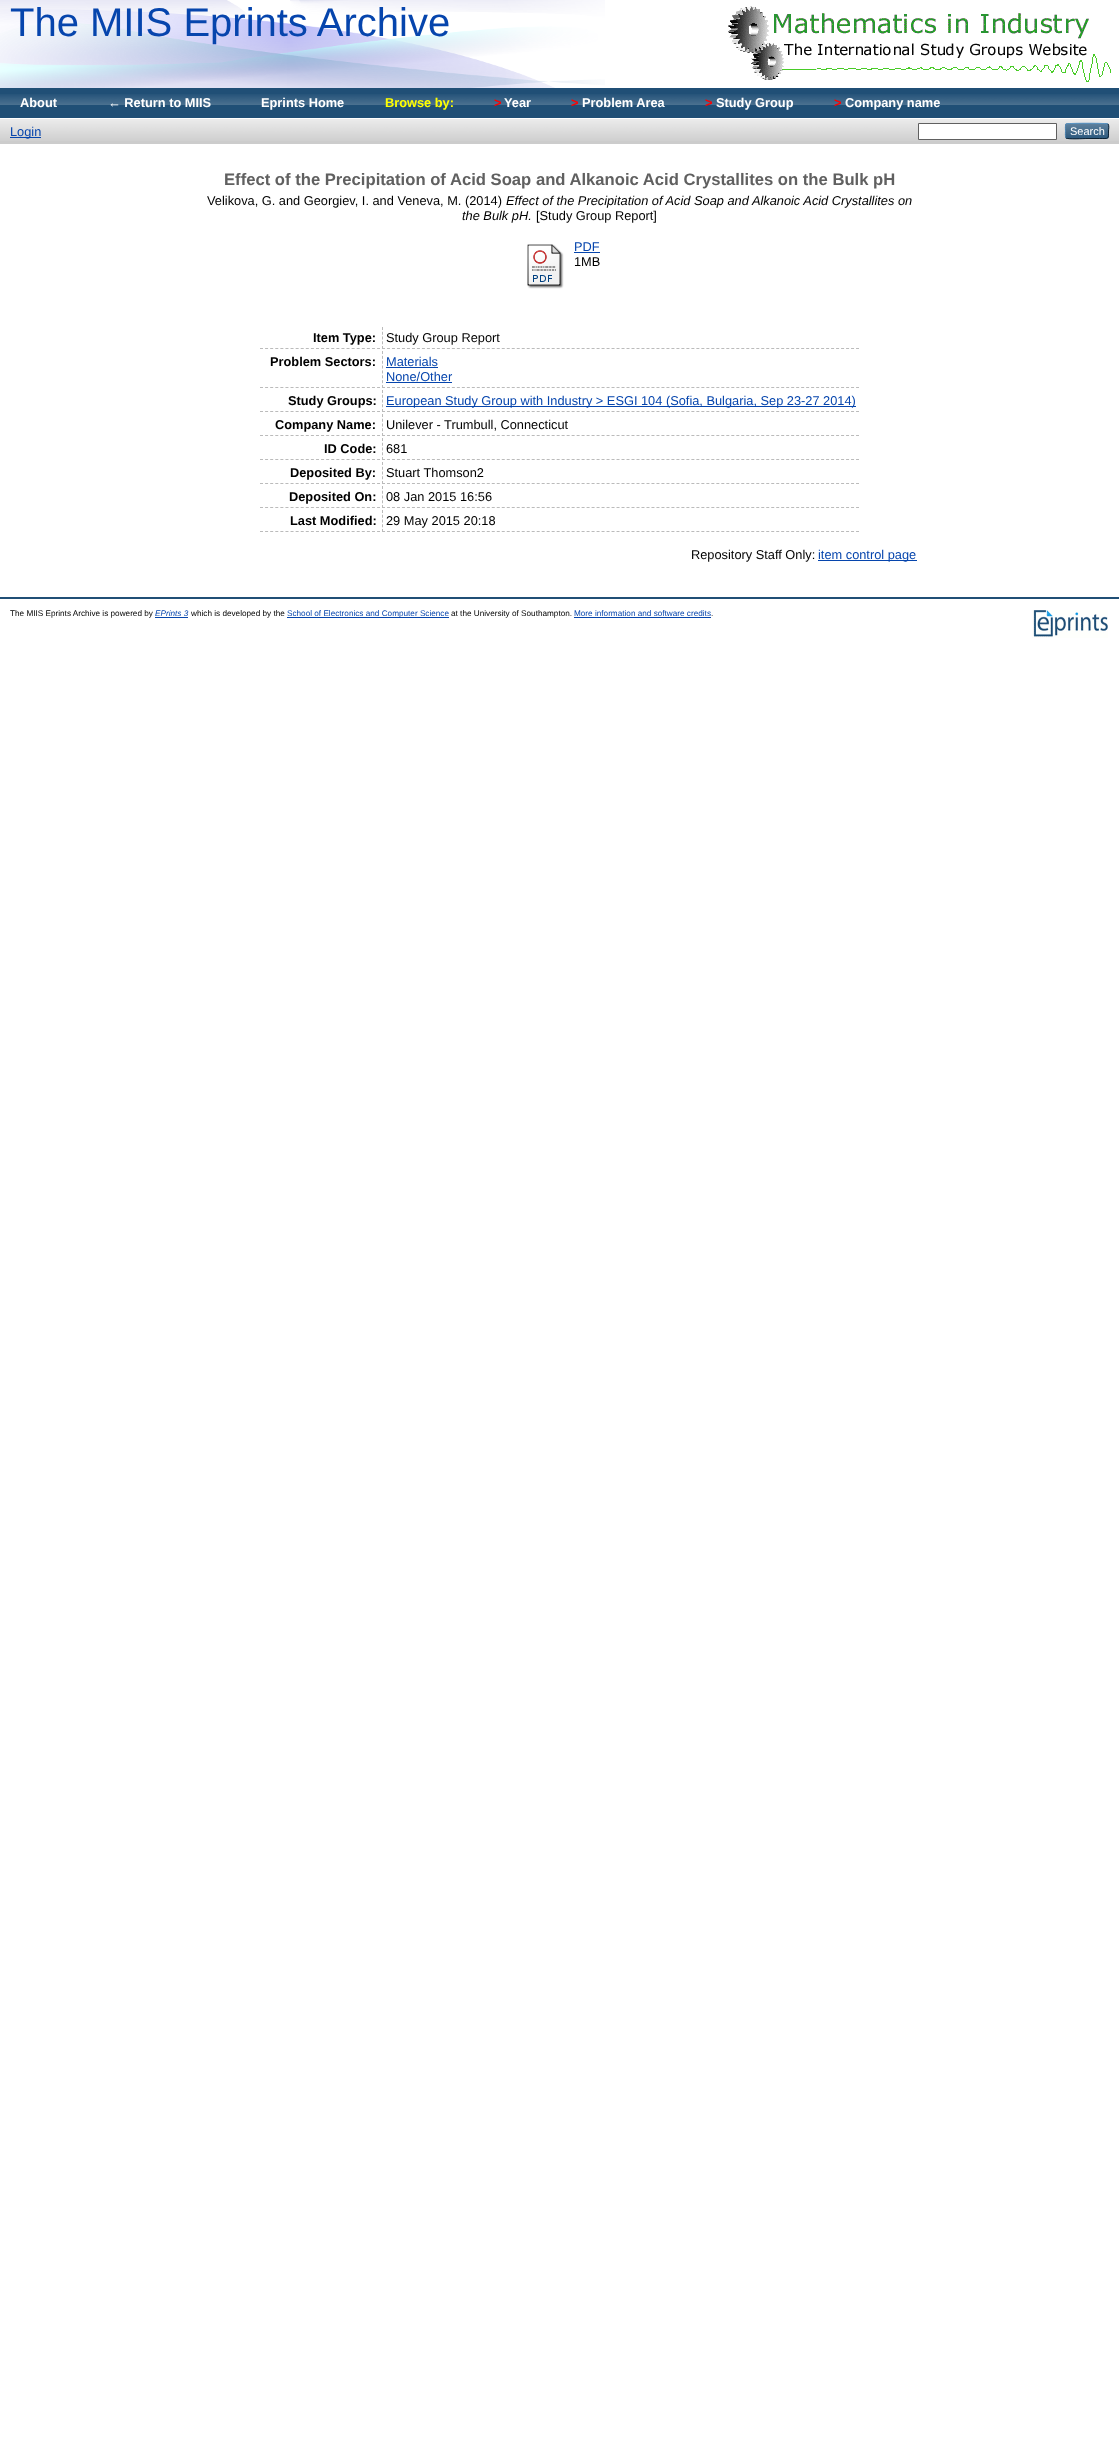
async function draw(canvas) {
	canvas.width = 1119;
	canvas.height = 2440;
	const c = canvas.getContext('2d');
	c.miterLimit = 4;
	c.fontKerning = 'normal';
	async function loadImage(src) {
		const img = new Image();
		img.src = src;
		await img.decode();
		return img;
	}

	c.fillStyle = '#fff';
	c.fillRect(0, 0, 1119, 2440);
	c.drawImage(await loadImage('img1.png'), 0, 0, 605, 88);
	c.font = '40px Liberation Sans';
	c.fillStyle = '#0645ad';
	c.fillText('The MIIS Eprints Archive', 10, 36);
	c.drawImage(await loadImage('img2.png'), 728, 6, 383, 76);
	c.fillStyle = '#204f76';
	c.fillRect(0, 88, 1119, 30);
	c.drawImage(await loadImage('img3.png'), 0, 94, 1119, 11);
	c.font = 'bold 12.8px Liberation Sans';
	c.fillStyle = '#fff';
	for (const [text, x, y] of [
		['About', 20, 107],
		['← Return to MIIS', 108, 107],
		['Eprints Home', 261, 107],
	]) {
		c.fillText(text, x, y);
	}
	c.fillStyle = '#ff0';
	c.fillText('Browse by:', 385, 107);
	c.fillStyle = '#f00';
	c.fillText('>', 494, 107);
	c.fillStyle = '#fff';
	c.fillText('Year', 504, 107);
	c.fillStyle = '#f00';
	c.fillText('>', 571, 107);
	c.fillStyle = '#fff';
	c.fillText('Problem Area', 582, 107);
	c.fillStyle = '#f00';
	c.fillText('>', 705, 107);
	c.fillStyle = '#fff';
	c.fillText('Study Group', 716, 107);
	c.fillStyle = '#f00';
	c.fillText('>', 834, 107);
	c.fillStyle = '#fff';
	c.fillText('Company name', 845, 107);
	c.fillStyle = '#ccc';
	c.fillRect(0, 119, 1119, 25);
	c.drawImage(await loadImage('img4.png'), 0, 119, 1119, 22);
	c.fillStyle = '#0645ad';
	c.fillRect(10, 137, 31, 1);
	c.font = '12.8px Liberation Sans';
	c.fillText('Login', 10, 136);
	c.fillStyle = '#fff';
	c.beginPath();
	c.rect(918.5, 123.5, 138, 16);
	c.fill();
	c.strokeStyle = '#606060';
	c.stroke();
	c.fillStyle = '#1f4f76';
	c.beginPath();
	c.roundRect(1065, 123, 44, 16, 3);
	c.fill();
	c.drawImage(await loadImage('img5.png'), 1065, 123, 44, 16);
	c.beginPath();
	c.moveTo(1066, 124);
	c.bezierCurveTo(1067.5, 123, 1106.5, 123, 1108, 124);
	c.strokeStyle = '#5b97c7';
	c.stroke();
	c.beginPath();
	c.moveTo(1108, 124);
	c.bezierCurveTo(1109.5, 126, 1108.5, 129, 1108.5, 131);
	c.bezierCurveTo(1108.5, 139.5, 1109, 138.5, 1099.5, 138.5);
	c.lineTo(1087, 138.5);
	c.bezierCurveTo(1084, 138.5, 1068, 139.5, 1066, 138);
	c.strokeStyle = '#0d2131';
	c.stroke();
	c.beginPath();
	c.moveTo(1066, 138);
	c.bezierCurveTo(1065, 136.5, 1065.5, 132.5, 1065.5, 131);
	c.bezierCurveTo(1065.5, 129.5, 1065, 125.5, 1066, 124);
	c.strokeStyle = '#5287b3';
	c.stroke();
	c.font = '11px Liberation Sans';
	c.fillStyle = '#fff';
	c.fillText('Search', 1070, 135);
	c.font = 'bold 16.65px Liberation Sans';
	c.fillStyle = '#606060';
	c.fillText('Effect of the Precipitation of Acid Soap and Alkanoic Acid Crystallites on the Bulk pH', 224, 185);
	c.font = '12.8px Liberation Sans';
	c.fillStyle = '#000';
	c.fillText('Velikova, G. and Georgiev, I. and Veneva, M. (2014)', 207, 205);
	c.font = 'italic 12.8px Liberation Sans';
	c.fillText('Effect of the Precipitation of Acid Soap and Alkanoic Acid Crystallites on', 506, 205);
	c.fillText('the Bulk pH.', 462, 220);
	c.font = '12.8px Liberation Sans';
	c.fillText('[Study Group Report]', 536, 220);
	c.drawImage(await loadImage('img6.png'), 527, 244, 37, 45);
	c.fillStyle = '#0645ad';
	c.fillText('PDF', 574, 251);
	c.fillRect(574, 252, 26, 1);
	c.fillStyle = '#000';
	c.fillText('1MB', 574, 266);
	c.beginPath();
	c.moveTo(260, 348.5);
	c.lineTo(380, 348.5);
	c.strokeStyle = '#bbb';
	c.setLineDash([3, 2.09]);
	c.stroke();
	c.font = 'bold 12.8px Liberation Sans';
	c.fillText('Item Type:', 313, 342);
	c.beginPath();
	c.moveTo(382, 348.5);
	c.lineTo(859, 348.5);
	c.setLineDash([3, 1.99]);
	c.stroke();
	c.beginPath();
	c.moveTo(382.5, 327);
	c.lineTo(382.5, 349);
	c.setLineDash([3, 1.75]);
	c.stroke();
	c.font = '12.8px Liberation Sans';
	c.fillText('Study Group Report', 386, 342);
	c.beginPath();
	c.moveTo(260, 387.5);
	c.lineTo(380, 387.5);
	c.setLineDash([3, 2.09]);
	c.stroke();
	c.font = 'bold 12.8px Liberation Sans';
	c.fillText('Problem Sectors:', 270, 366);
	c.beginPath();
	c.moveTo(382, 387.5);
	c.lineTo(859, 387.5);
	c.setLineDash([3, 1.99]);
	c.stroke();
	c.beginPath();
	c.moveTo(382.5, 351);
	c.lineTo(382.5, 388);
	c.setLineDash([3, 1.86]);
	c.stroke();
	c.font = '12.8px Liberation Sans';
	c.fillStyle = '#0645ad';
	c.fillText('Materials', 386, 366);
	c.fillRect(386, 367, 52, 1);
	c.fillText('None/Other', 386, 381);
	c.fillRect(386, 382, 66, 1);
	c.beginPath();
	c.moveTo(260, 411.5);
	c.lineTo(380, 411.5);
	c.setLineDash([3, 2.09]);
	c.stroke();
	c.font = 'bold 12.8px Liberation Sans';
	c.fillStyle = '#000';
	c.fillText('Study Groups:', 288, 405);
	c.beginPath();
	c.moveTo(382, 411.5);
	c.lineTo(859, 411.5);
	c.setLineDash([3, 1.99]);
	c.stroke();
	c.beginPath();
	c.moveTo(382.5, 390);
	c.lineTo(382.5, 412);
	c.setLineDash([3, 1.75]);
	c.stroke();
	c.fillStyle = '#0645ad';
	c.fillRect(386, 406, 470, 1);
	c.font = '12.8px Liberation Sans';
	c.fillText('European Study Group with Industry > ESGI 104 (Sofia, Bulgaria, Sep 23-27 2014)', 386, 405);
	c.beginPath();
	c.moveTo(260, 435.5);
	c.lineTo(380, 435.5);
	c.setLineDash([3, 2.09]);
	c.stroke();
	c.font = 'bold 12.8px Liberation Sans';
	c.fillStyle = '#000';
	c.fillText('Company Name:', 275, 429);
	c.beginPath();
	c.moveTo(382, 435.5);
	c.lineTo(859, 435.5);
	c.setLineDash([3, 1.99]);
	c.stroke();
	c.beginPath();
	c.moveTo(382.5, 414);
	c.lineTo(382.5, 436);
	c.setLineDash([3, 1.75]);
	c.stroke();
	c.font = '12.8px Liberation Sans';
	c.fillText('Unilever - Trumbull, Connecticut', 386, 429);
	c.beginPath();
	c.moveTo(260, 459.5);
	c.lineTo(380, 459.5);
	c.setLineDash([3, 2.09]);
	c.stroke();
	c.font = 'bold 12.8px Liberation Sans';
	c.fillText('ID Code:', 324, 453);
	c.beginPath();
	c.moveTo(382, 459.5);
	c.lineTo(859, 459.5);
	c.setLineDash([3, 1.99]);
	c.stroke();
	c.beginPath();
	c.moveTo(382.5, 438);
	c.lineTo(382.5, 460);
	c.setLineDash([3, 1.75]);
	c.stroke();
	c.font = '12.8px Liberation Sans';
	c.fillText('681', 386, 453);
	c.beginPath();
	c.moveTo(260, 483.5);
	c.lineTo(380, 483.5);
	c.setLineDash([3, 2.09]);
	c.stroke();
	c.font = 'bold 12.8px Liberation Sans';
	c.fillText('Deposited By:', 290, 477);
	c.beginPath();
	c.moveTo(382, 483.5);
	c.lineTo(859, 483.5);
	c.setLineDash([3, 1.99]);
	c.stroke();
	c.beginPath();
	c.moveTo(382.5, 462);
	c.lineTo(382.5, 484);
	c.setLineDash([3, 1.75]);
	c.stroke();
	c.font = '12.8px Liberation Sans';
	c.fillText('Stuart Thomson2', 386, 477);
	c.beginPath();
	c.moveTo(260, 507.5);
	c.lineTo(380, 507.5);
	c.setLineDash([3, 2.09]);
	c.stroke();
	c.font = 'bold 12.8px Liberation Sans';
	c.fillText('Deposited On:', 289, 501);
	c.beginPath();
	c.moveTo(382, 507.5);
	c.lineTo(859, 507.5);
	c.setLineDash([3, 1.99]);
	c.stroke();
	c.beginPath();
	c.moveTo(382.5, 486);
	c.lineTo(382.5, 508);
	c.setLineDash([3, 1.75]);
	c.stroke();
	c.font = '12.8px Liberation Sans';
	c.fillText('08 Jan 2015 16:56', 386, 501);
	c.beginPath();
	c.moveTo(260, 531.5);
	c.lineTo(380, 531.5);
	c.setLineDash([3, 2.09]);
	c.stroke();
	c.font = 'bold 12.8px Liberation Sans';
	c.fillText('Last Modified:', 290, 525);
	c.beginPath();
	c.moveTo(382, 531.5);
	c.lineTo(859, 531.5);
	c.setLineDash([3, 1.99]);
	c.stroke();
	c.beginPath();
	c.moveTo(382.5, 510);
	c.lineTo(382.5, 532);
	c.setLineDash([3, 1.75]);
	c.stroke();
	c.font = '12.8px Liberation Sans';
	c.fillText('29 May 2015 20:18', 386, 525);
	c.fillText('Repository Staff Only:', 691, 559);
	c.fillStyle = '#0645ad';
	c.fillRect(818, 560, 99, 1);
	c.fillText('item control page', 818, 559);
	c.fillStyle = '#204f76';
	c.fillRect(0, 597, 1119, 2);
	c.font = '8.2px Liberation Sans';
	c.fillStyle = '#000';
	c.fillText('The MIIS Eprints Archive is powered by', 10, 616);
	c.font = 'italic 8.2px Liberation Sans';
	c.fillStyle = '#0645ad';
	c.fillText('EPrints 3', 155, 616);
	c.fillRect(155, 617, 33, 1);
	c.font = '8.2px Liberation Sans';
	c.fillStyle = '#000';
	c.fillText('which is developed by the', 191, 616);
	c.fillStyle = '#0645ad';
	c.fillRect(287, 617, 162, 1);
	c.fillText('School of Electronics and Computer Science', 287, 616);
	c.fillStyle = '#000';
	c.fillText('at the University of Southampton.', 451, 616);
	c.fillStyle = '#0645ad';
	c.fillText('More information and software credits', 574, 616);
	c.fillRect(574, 617, 137, 1);
	c.fillStyle = '#000';
	c.fillText('.', 711, 616);
	c.drawImage(await loadImage('img7.png'), 1032, 610, 76, 28);
}

draw(document.querySelector('canvas'));
